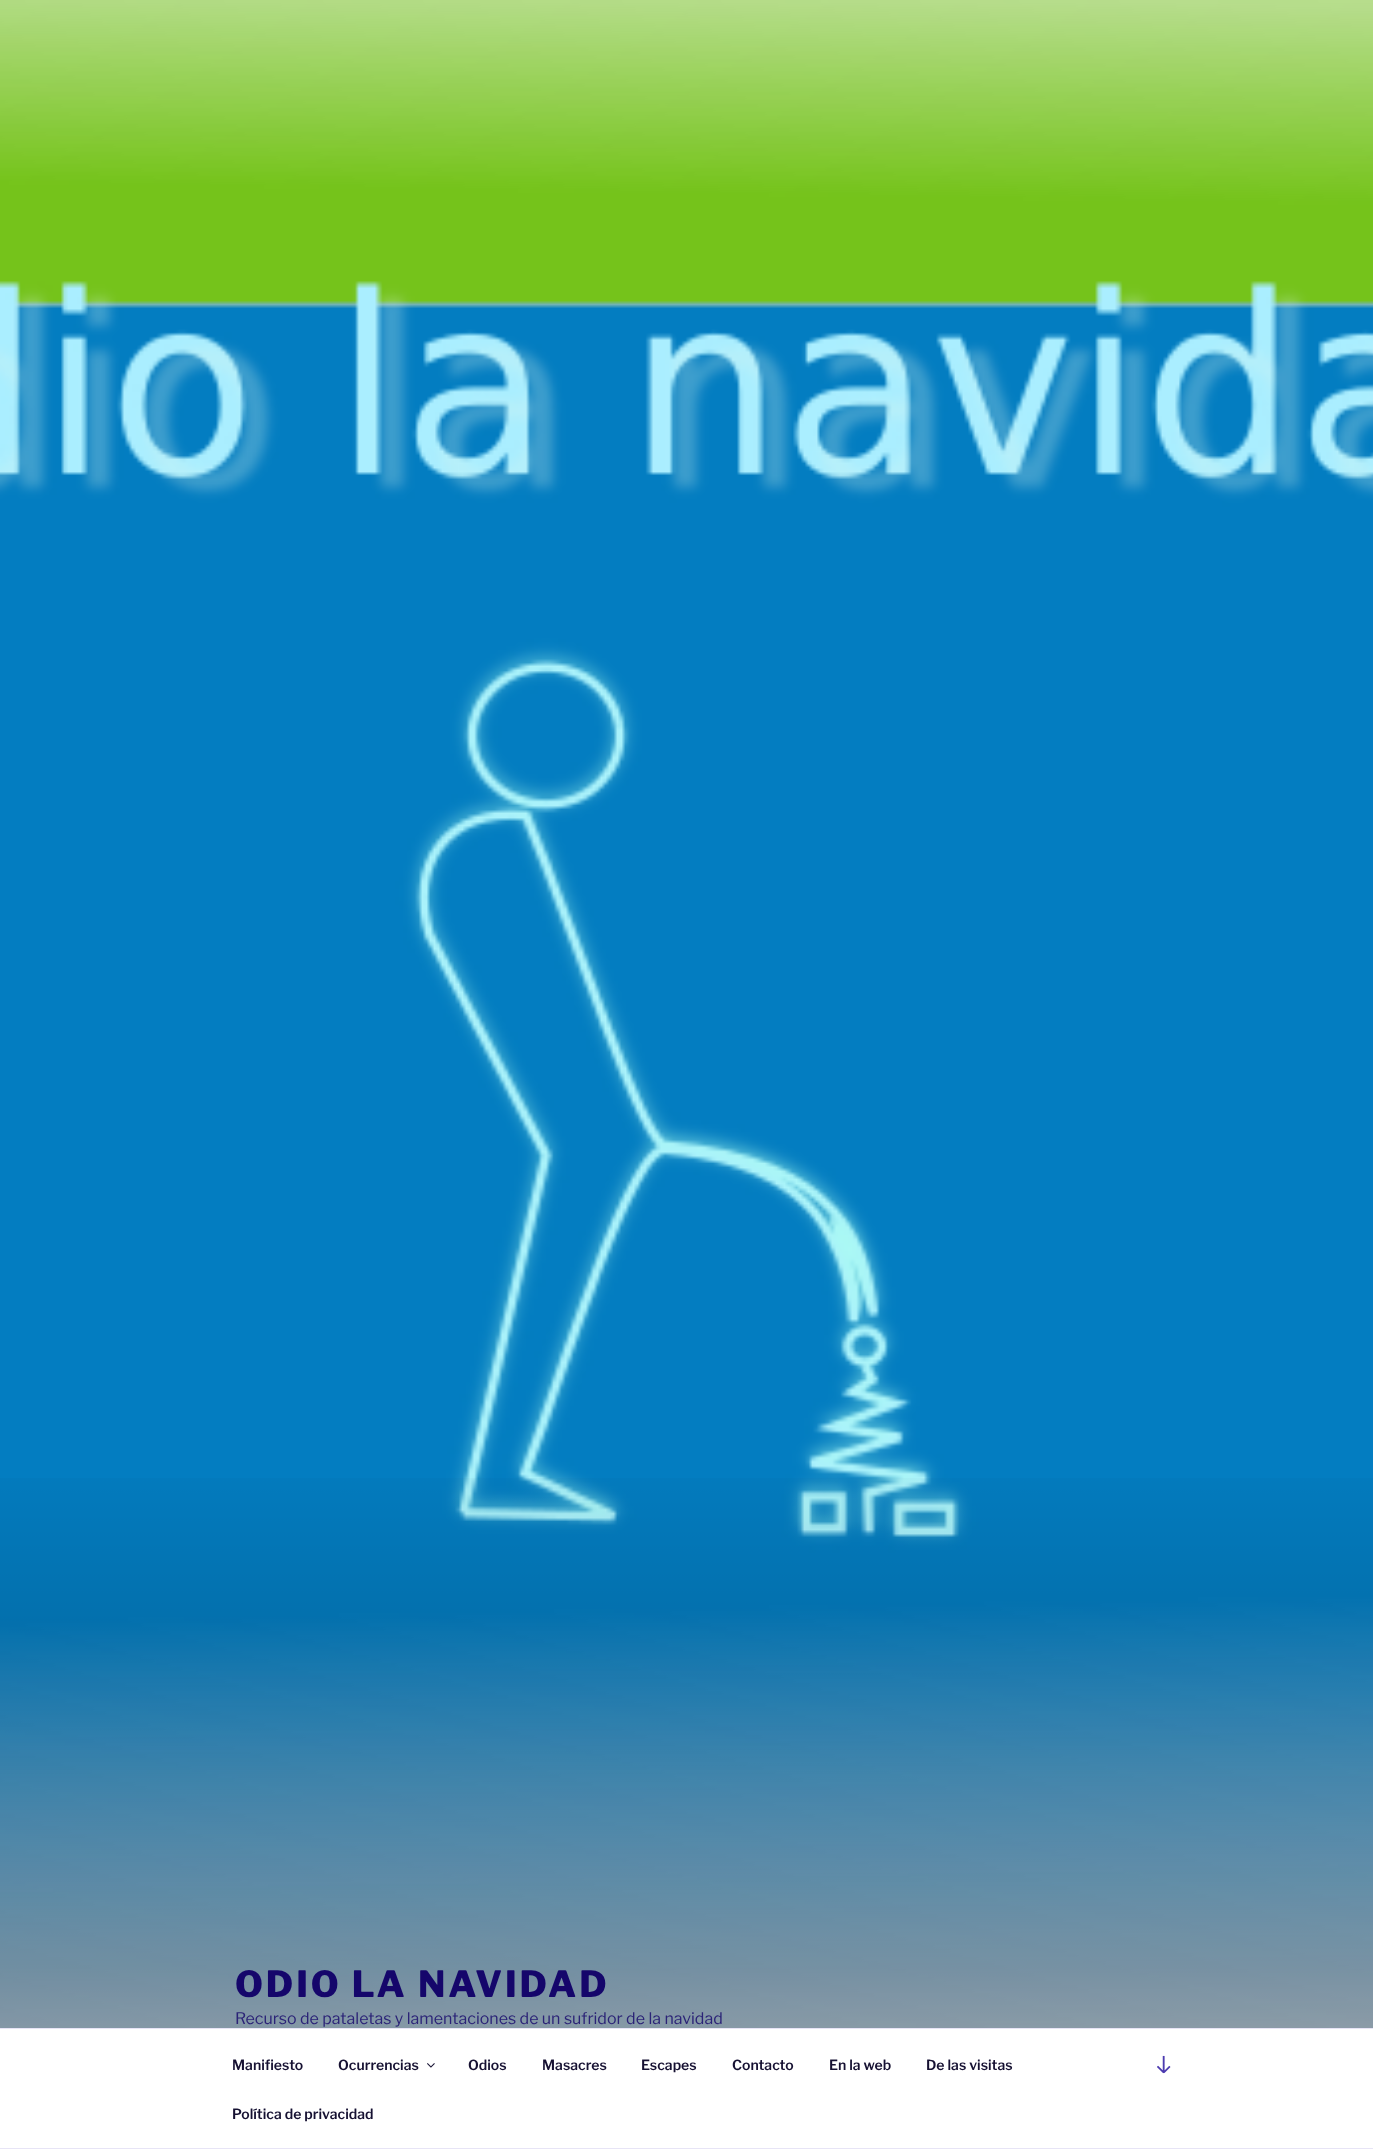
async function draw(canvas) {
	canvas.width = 1373;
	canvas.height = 2149;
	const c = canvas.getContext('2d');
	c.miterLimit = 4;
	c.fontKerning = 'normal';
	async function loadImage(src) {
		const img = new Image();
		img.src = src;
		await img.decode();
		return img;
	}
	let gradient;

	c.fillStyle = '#f8f7fc';
	c.fillRect(0, 0, 1373, 2149);
	c.drawImage(await loadImage('img1.png'), 0, 0, 1373, 2028);
	gradient = c.createLinearGradient(687, 1440, 687, 2149);
	gradient.addColorStop(0, '#00000000');
	gradient.addColorStop(0.75, '#0000004d');
	gradient.addColorStop(1, '#0000004d');
	c.fillStyle = gradient;
	c.fillRect(0, 1478, 1373, 550);
	c.letterSpacing = '2.9px';
	c.font = '100 36px Libre Franklin';
	c.fillStyle = '#15066b';
	c.fillText('ODIO LA NAVIDAD', 235, 1997);
	c.letterSpacing = '0px';
	c.font = '100 16px "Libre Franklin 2"';
	c.fillStyle = '#2b2377';
	c.fillText('Recurso de pataletas y lamentaciones de un sufridor de la navidad', 235, 2024);
	for (const [x, y, w, h, color] of [
		[0, 2029, 1373, 119, '#fff'],
		[0, 2028, 1373, 1, '#e7e4f6'],
		[0, 2148, 1373, 1, '#e7e4f6'],
	]) {
		c.fillStyle = color;
		c.fillRect(x, y, w, h);
	}
	c.font = '100 14px "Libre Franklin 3"';
	c.fillStyle = '#161132';
	c.fillText('Manifiesto', 232, 2070);
	c.fillText('Ocurrencias', 338, 2070);
	c.drawImage(await loadImage('img2.png'), 427, 2063, 8, 5);
	for (const [text, x, y] of [
		['Odios', 468, 2070],
		['Masacres', 542, 2070],
		['Escapes', 641, 2070],
		['Contacto', 732, 2070],
		['En la web', 829, 2070],
		['De las visitas', 926, 2070],
		['Política de privacidad', 232, 2119],
	]) {
		c.fillText(text, x, y);
	}
	c.drawImage(await loadImage('img3.png'), 1157, 2055, 14, 19);
}

draw(document.querySelector('canvas'));
